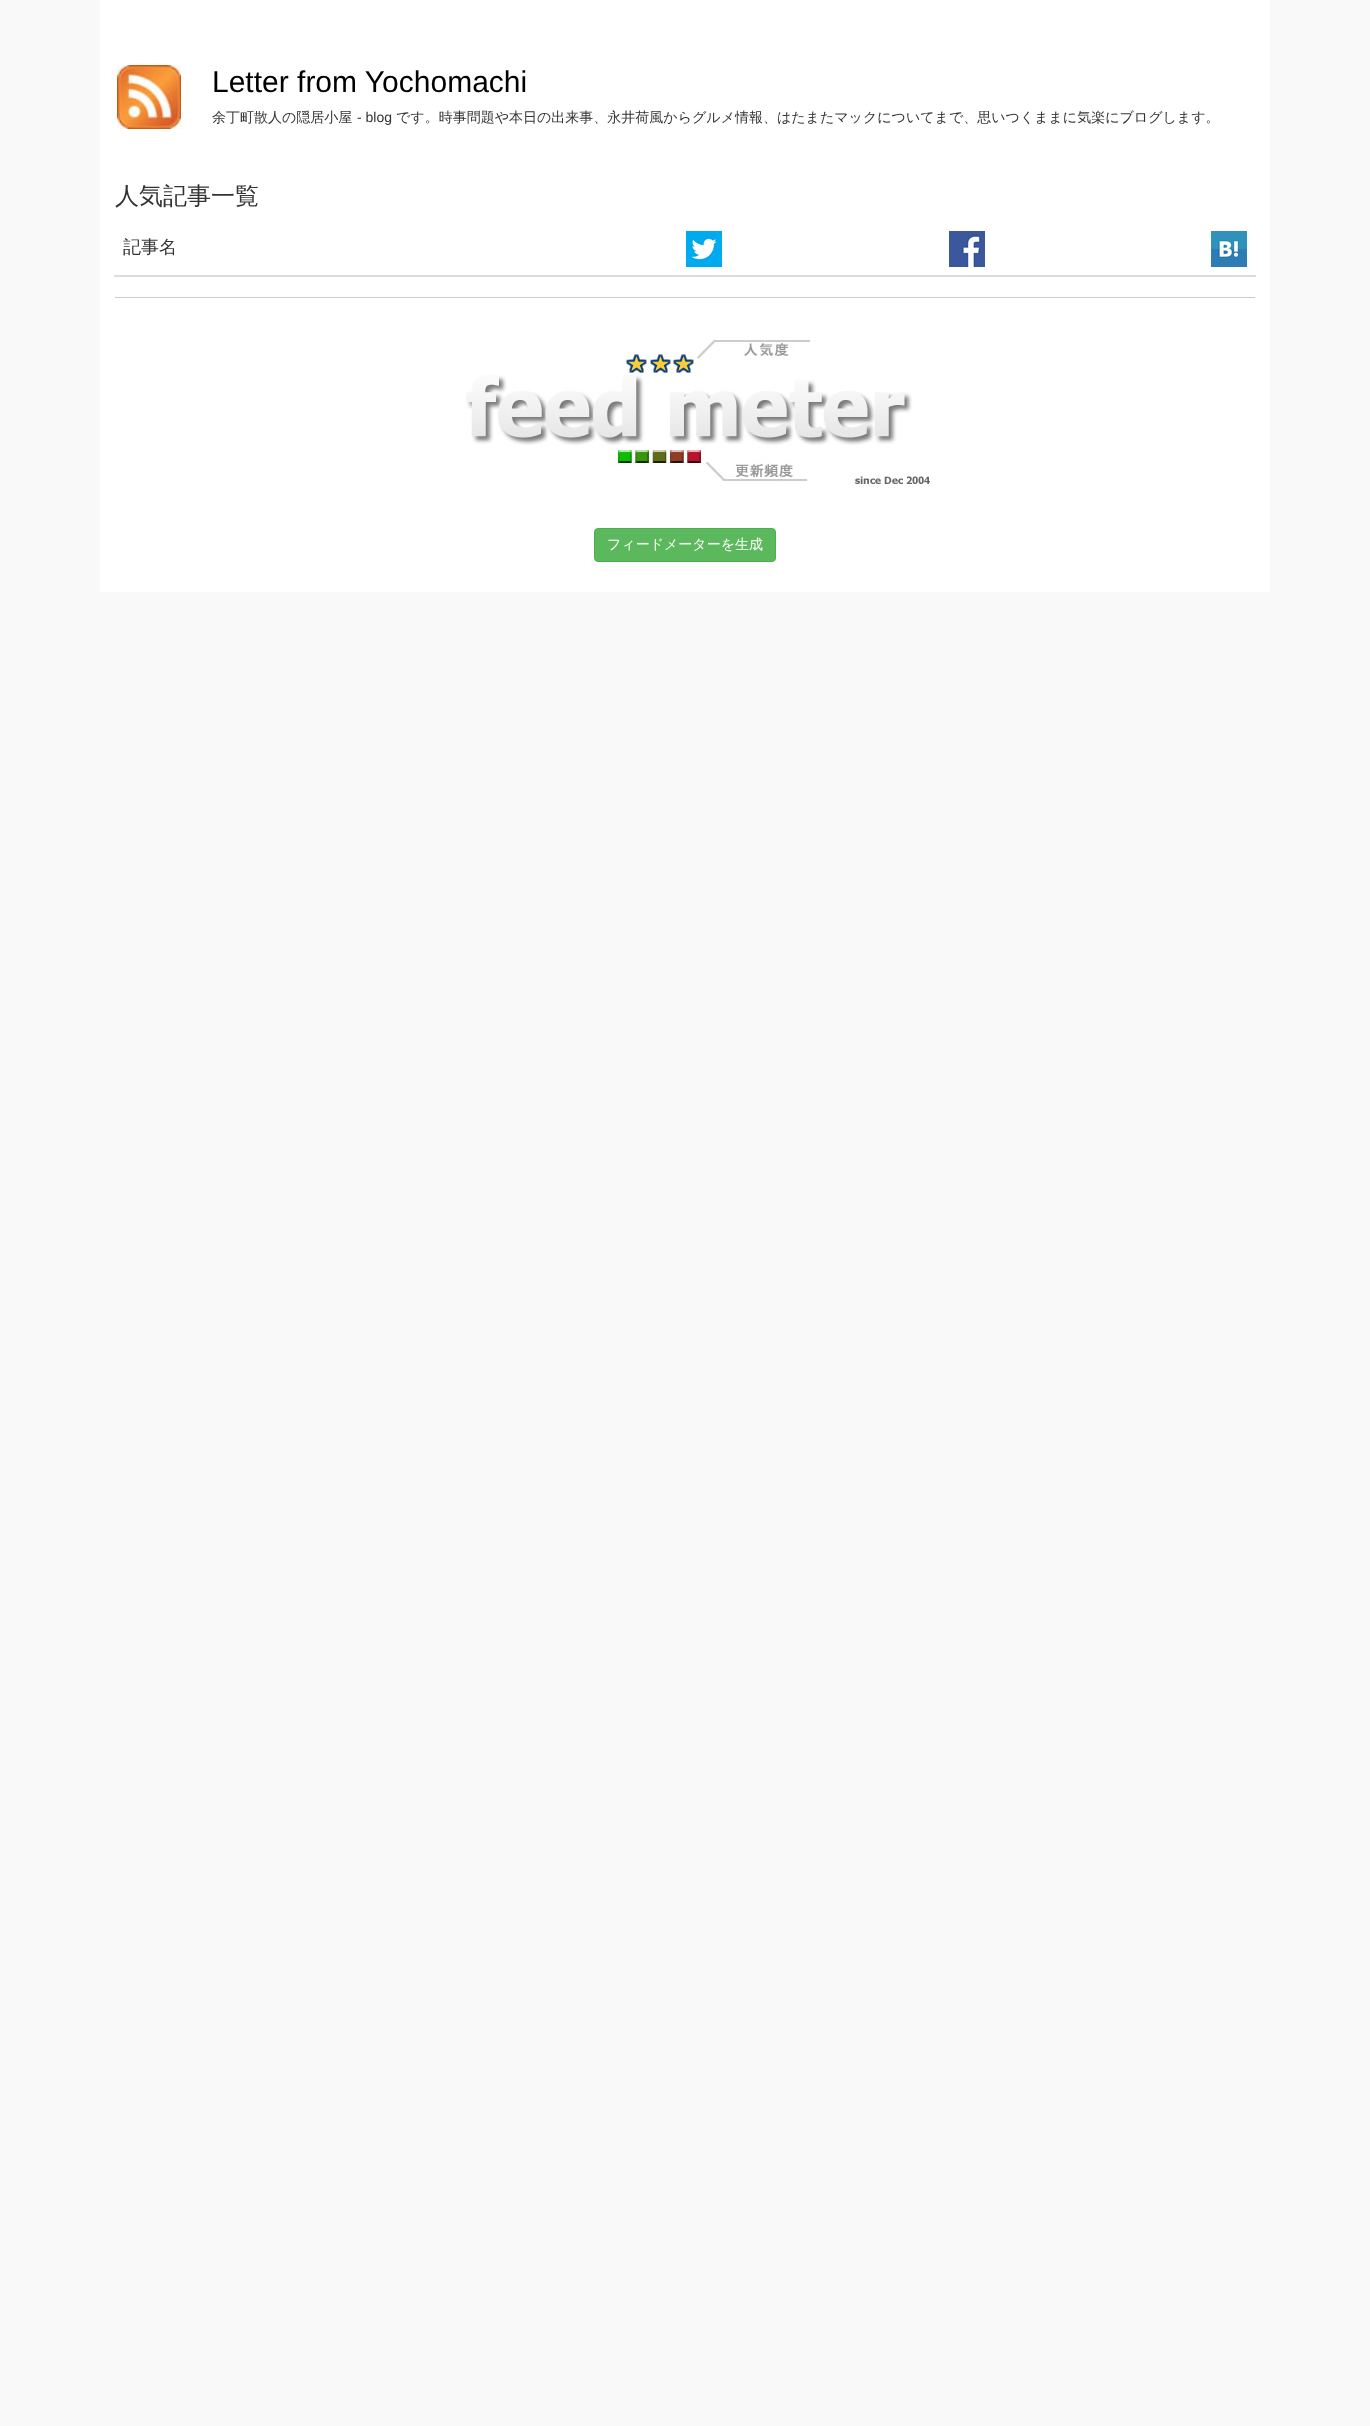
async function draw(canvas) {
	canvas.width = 1370;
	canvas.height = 2426;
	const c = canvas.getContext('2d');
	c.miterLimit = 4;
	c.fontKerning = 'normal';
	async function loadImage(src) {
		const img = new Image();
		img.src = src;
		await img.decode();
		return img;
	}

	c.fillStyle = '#f9f9f9';
	c.fillRect(0, 0, 1370, 2426);
	c.fillStyle = '#fff';
	c.fillRect(100, 0, 1170, 592);
	c.drawImage(await loadImage('img1.png'), 117, 65, 64, 64);
	c.font = '30px Liberation Sans';
	c.fillStyle = '#000';
	c.fillText('Letter from Yochomachi', 212, 92);
	c.font = '500 14px WenQuanYi Zen Hei';
	c.fillStyle = '#333';
	c.fillText('余丁町散人の隠居小屋', 212, 122);
	c.font = '14px Liberation Sans';
	c.fillText('- blog', 357, 122);
	c.font = '500 14px WenQuanYi Zen Hei';
	c.fillText('です。時事問題や本日の出来事、永井荷風からグルメ情報、はたまたマックについてまで、思いつくままに気楽にブログします。', 396, 122);
	c.font = '500 24px WenQuanYi Zen Hei';
	c.fillText('人気記事一覧', 115, 204);
	c.fillStyle = '#ddd';
	c.fillRect(114, 275, 1142, 2);
	c.drawImage(await loadImage('img2.png'), 1211, 231, 36, 36);
	c.font = '500 18px WenQuanYi Zen Hei';
	c.fillStyle = '#333';
	c.fillText('記事名', 123, 253);
	c.drawImage(await loadImage('img3.png'), 686, 231, 36, 36);
	c.drawImage(await loadImage('img4.png'), 949, 231, 36, 36);
	c.fillStyle = '#ccc';
	c.fillRect(115, 297, 1140, 1);
	c.drawImage(await loadImage('img5.png'), 466, 339, 464, 149);
	c.fillStyle = '#5cb85c';
	c.beginPath();
	c.roundRect(594.5, 528.5, 181, 33, 3.5);
	c.fill();
	c.strokeStyle = '#4cae4c';
	c.stroke();
	c.font = '500 14px WenQuanYi Zen Hei';
	c.fillStyle = '#fff';
	c.fillText('フィードメーターを生成', 607, 549);
}

draw(document.querySelector('canvas'));
